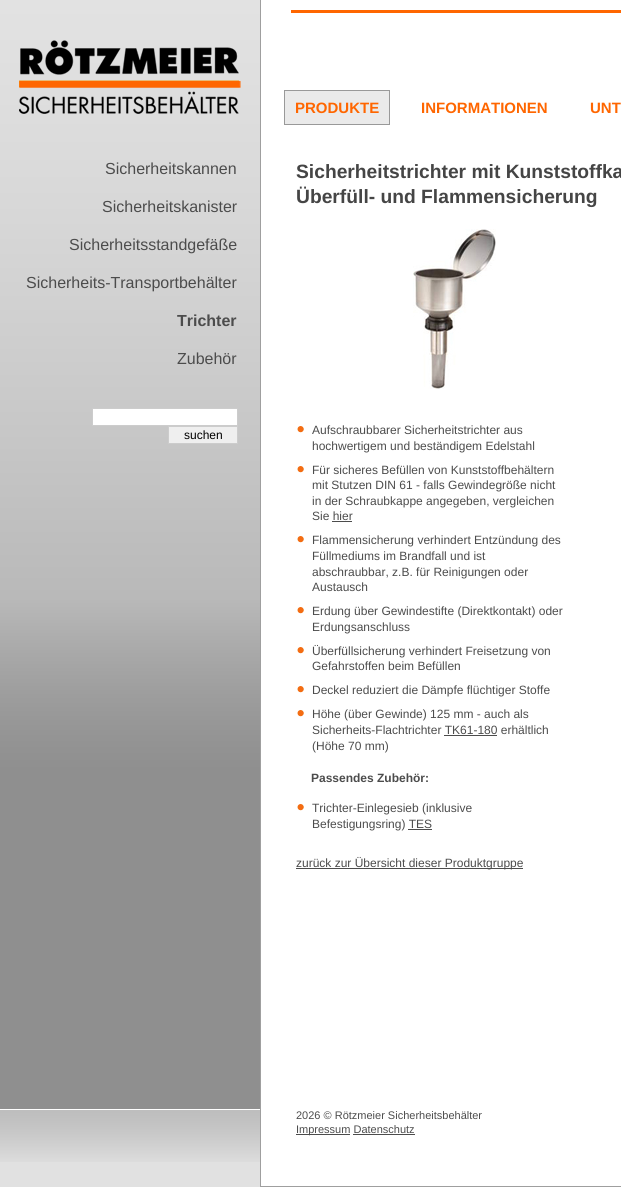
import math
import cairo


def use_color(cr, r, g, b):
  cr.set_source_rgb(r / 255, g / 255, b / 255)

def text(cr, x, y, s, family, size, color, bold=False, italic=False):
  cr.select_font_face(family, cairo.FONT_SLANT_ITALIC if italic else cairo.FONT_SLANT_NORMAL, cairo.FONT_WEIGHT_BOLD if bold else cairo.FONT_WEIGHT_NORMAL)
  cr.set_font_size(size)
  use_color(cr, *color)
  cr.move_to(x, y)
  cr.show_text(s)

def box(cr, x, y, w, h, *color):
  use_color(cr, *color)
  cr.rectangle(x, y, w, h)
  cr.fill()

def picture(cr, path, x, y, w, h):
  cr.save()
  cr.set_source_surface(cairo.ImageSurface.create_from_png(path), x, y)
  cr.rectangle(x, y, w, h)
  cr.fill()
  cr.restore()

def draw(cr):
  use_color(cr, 143, 143, 143)
  cr.paint()
  picture(cr, "img_01.png", 0, 0, 261, 1109)
  picture(cr, "img_02.png", 19, 40, 222, 74)
  use_color(cr, 255, 255, 255)
  cr.rectangle(92.5, 408.5, 145, 17)
  cr.fill_preserve()
  use_color(cr, 204, 204, 204)
  cr.set_line_width(1)
  cr.stroke()
  use_color(cr, 239, 239, 239)
  cr.rectangle(168.5, 426.5, 69, 17)
  cr.fill_preserve()
  use_color(cr, 204, 204, 204)
  cr.stroke()
  box(cr, 261, 0, 360, 1186, 255, 255, 255)
  box(cr, 291, 10, 330, 3, 255, 102, 0)
  use_color(cr, 234, 234, 234)
  cr.rectangle(284.5, 90.5, 105, 34)
  cr.fill_preserve()
  use_color(cr, 153, 153, 153)
  cr.stroke()
  picture(cr, "img_03.png", 413, 229, 83, 160)
  picture(cr, "img_04.png", 297, 426, 7, 7)
  picture(cr, "img_04.png", 297, 466, 7, 7)
  box(cr, 332, 521, 20, 1, 76, 76, 76)
  picture(cr, "img_04.png", 297, 536, 7, 7)
  picture(cr, "img_04.png", 297, 607, 7, 7)
  picture(cr, "img_04.png", 297, 647, 7, 7)
  picture(cr, "img_04.png", 297, 686, 7, 7)
  picture(cr, "img_04.png", 297, 710, 7, 7)
  box(cr, 444, 735, 53, 1, 76, 76, 76)
  picture(cr, "img_04.png", 297, 804, 7, 7)
  box(cr, 408, 829, 24, 1, 76, 76, 76)
  box(cr, 296, 868, 227, 1, 76, 76, 76)
  box(cr, 0, 1162, 260, 25, 225, 225, 225)
  picture(cr, "img_05.png", 0, 1110, 260, 52)
  box(cr, 0, 1109, 261, 1, 255, 255, 255)
  box(cr, 260, 1186, 361, 1, 159, 159, 159)
  box(cr, 260, 1109, 1, 78, 159, 159, 159)
  box(cr, 296, 1134, 54, 1, 76, 76, 76)
  box(cr, 353, 1134, 62, 1, 76, 76, 76)
  text(cr, 105, 174, "Sicherheitskannen", "Liberation Sans", 16, (76, 76, 76))
  text(cr, 102, 212, "Sicherheitskanister", "Liberation Sans", 16, (76, 76, 76))
  text(cr, 69, 250, "Sicherheitsstandgefäße", "Liberation Sans", 16, (76, 76, 76))
  text(cr, 26, 288, "Sicherheits-Transportbehälter", "Liberation Sans", 16, (76, 76, 76))
  text(cr, 177, 326, "Trichter", "Liberation Sans", 16, (76, 76, 76), bold=True)
  text(cr, 177, 364, "Zubehör", "Liberation Sans", 16, (76, 76, 76))
  text(cr, 184, 439, "suchen", "Liberation Sans", 12, (0, 0, 0))
  text(cr, 295, 113, "PRODUKTE", "Liberation Sans", 15, (255, 102, 0), bold=True)
  text(cr, 421, 113, "INFORMATIONEN", "Liberation Sans", 15, (255, 102, 0), bold=True)
  text(cr, 590, 113, "UNT", "Liberation Sans", 15, (255, 102, 0), bold=True)
  text(cr, 296, 178, "Sicherheitstrichter mit Kunststoffka", "Liberation Sans", 19.25, (69, 69, 69), bold=True)
  text(cr, 296, 203, "Überfüll- und Flammensicherung", "Liberation Sans", 19.25, (69, 69, 69), bold=True)
  text(cr, 312, 434, "Aufschraubbarer Sicherheitstrichter aus", "Liberation Sans", 12, (76, 76, 76))
  text(cr, 312, 450, "hochwertigem und beständigem Edelstahl", "Liberation Sans", 12, (76, 76, 76))
  text(cr, 312, 474, "Für sicheres Befüllen von Kunststoffbehältern", "Liberation Sans", 12, (76, 76, 76))
  text(cr, 312, 489, "mit Stutzen DIN 61 - falls Gewindegröße nicht", "Liberation Sans", 12, (76, 76, 76))
  text(cr, 312, 505, "in der Schraubkappe angegeben, vergleichen", "Liberation Sans", 12, (76, 76, 76))
  text(cr, 312, 520, "Sie hier", "Liberation Sans", 12, (76, 76, 76))
  text(cr, 312, 544, "Flammensicherung verhindert Entzündung des", "Liberation Sans", 12, (76, 76, 76))
  text(cr, 312, 560, "Füllmediums im Brandfall und ist", "Liberation Sans", 12, (76, 76, 76))
  text(cr, 312, 576, "abschraubbar, z.B. für Reinigungen oder", "Liberation Sans", 12, (76, 76, 76))
  text(cr, 312, 591, "Austausch", "Liberation Sans", 12, (76, 76, 76))
  text(cr, 312, 615, "Erdung über Gewindestifte (Direktkontakt) oder", "Liberation Sans", 12, (76, 76, 76))
  text(cr, 312, 631, "Erdungsanschluss", "Liberation Sans", 12, (76, 76, 76))
  text(cr, 312, 655, "Überfüllsicherung verhindert Freisetzung von", "Liberation Sans", 12, (76, 76, 76))
  text(cr, 312, 670, "Gefahrstoffen beim Befüllen", "Liberation Sans", 12, (76, 76, 76))
  text(cr, 312, 694, "Deckel reduziert die Dämpfe flüchtiger Stoffe", "Liberation Sans", 12, (76, 76, 76))
  text(cr, 312, 718, "Höhe (über Gewinde) 125 mm - auch als", "Liberation Sans", 12, (76, 76, 76))
  text(cr, 312, 734, "Sicherheits-Flachtrichter TK61-180 erhältlich", "Liberation Sans", 12, (76, 76, 76))
  text(cr, 312, 750, "(Höhe 70 mm)", "Liberation Sans", 12, (76, 76, 76))
  text(cr, 311, 782, "Passendes Zubehör:", "Liberation Sans", 12, (76, 76, 76), bold=True)
  text(cr, 312, 812, "Trichter-Einlegesieb (inklusive", "Liberation Sans", 12, (76, 76, 76))
  text(cr, 312, 828, "Befestigungsring) TES", "Liberation Sans", 12, (76, 76, 76))
  text(cr, 296, 867, "zurück zur Übersicht dieser Produktgruppe", "Liberation Sans", 12, (76, 76, 76))
  text(cr, 296, 1119, "2026 © Rötzmeier Sicherheitsbehälter", "Liberation Sans", 11, (76, 76, 76))
  text(cr, 296, 1133, "Impressum Datenschutz", "Liberation Sans", 11, (76, 76, 76))


surface = cairo.ImageSurface(cairo.FORMAT_RGB24, 621, 1187)
cr = cairo.Context(surface)
options = cairo.FontOptions()
options.set_hint_metrics(cairo.HINT_METRICS_OFF)
options.set_hint_style(cairo.HINT_STYLE_NONE)
cr.set_font_options(options)
cr.set_miter_limit(4)
draw(cr)
surface.write_to_png("out.png")
